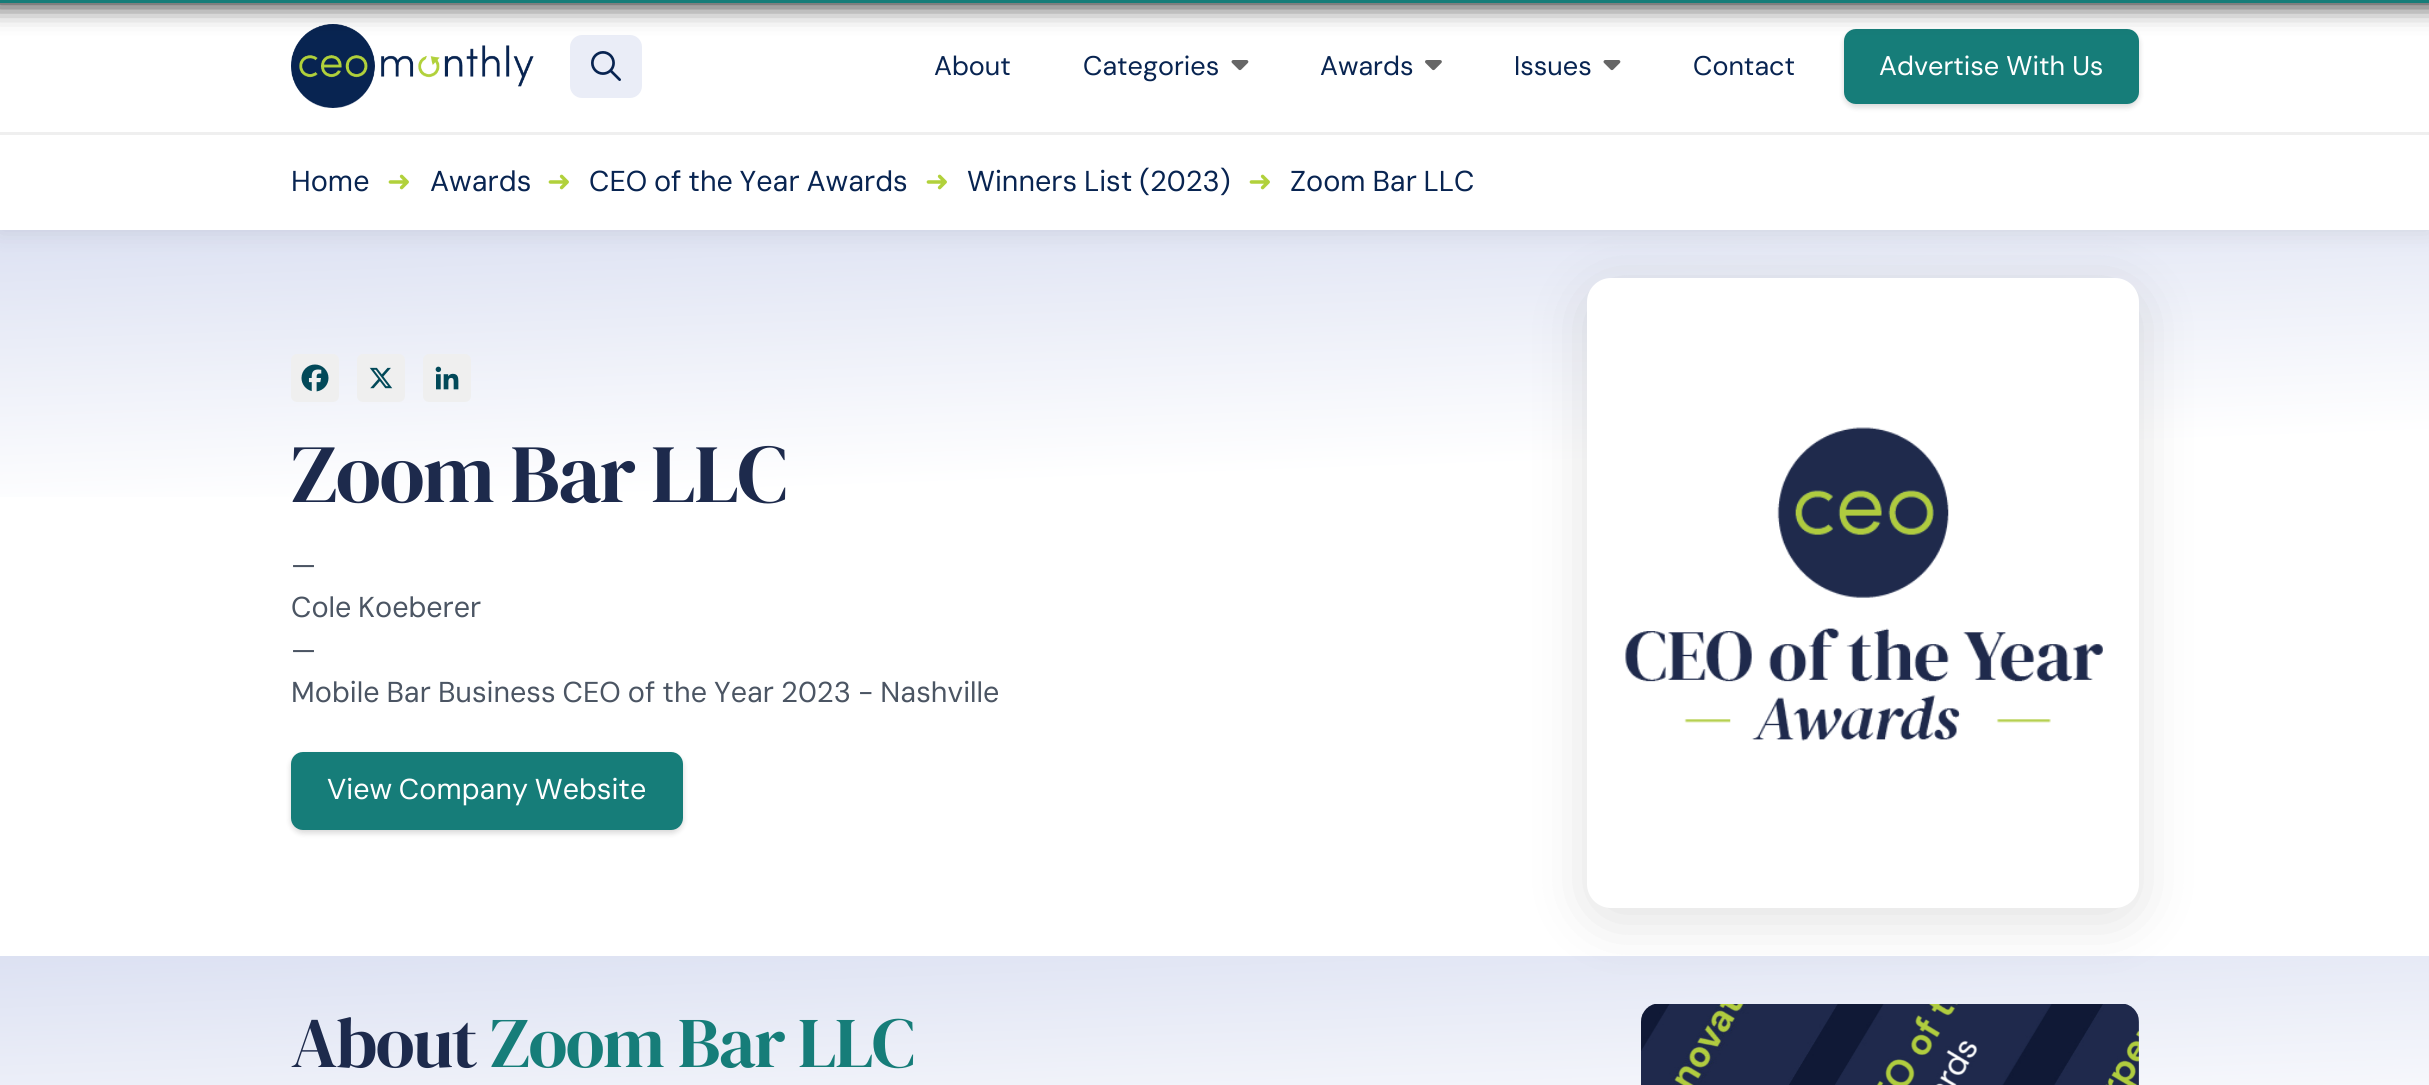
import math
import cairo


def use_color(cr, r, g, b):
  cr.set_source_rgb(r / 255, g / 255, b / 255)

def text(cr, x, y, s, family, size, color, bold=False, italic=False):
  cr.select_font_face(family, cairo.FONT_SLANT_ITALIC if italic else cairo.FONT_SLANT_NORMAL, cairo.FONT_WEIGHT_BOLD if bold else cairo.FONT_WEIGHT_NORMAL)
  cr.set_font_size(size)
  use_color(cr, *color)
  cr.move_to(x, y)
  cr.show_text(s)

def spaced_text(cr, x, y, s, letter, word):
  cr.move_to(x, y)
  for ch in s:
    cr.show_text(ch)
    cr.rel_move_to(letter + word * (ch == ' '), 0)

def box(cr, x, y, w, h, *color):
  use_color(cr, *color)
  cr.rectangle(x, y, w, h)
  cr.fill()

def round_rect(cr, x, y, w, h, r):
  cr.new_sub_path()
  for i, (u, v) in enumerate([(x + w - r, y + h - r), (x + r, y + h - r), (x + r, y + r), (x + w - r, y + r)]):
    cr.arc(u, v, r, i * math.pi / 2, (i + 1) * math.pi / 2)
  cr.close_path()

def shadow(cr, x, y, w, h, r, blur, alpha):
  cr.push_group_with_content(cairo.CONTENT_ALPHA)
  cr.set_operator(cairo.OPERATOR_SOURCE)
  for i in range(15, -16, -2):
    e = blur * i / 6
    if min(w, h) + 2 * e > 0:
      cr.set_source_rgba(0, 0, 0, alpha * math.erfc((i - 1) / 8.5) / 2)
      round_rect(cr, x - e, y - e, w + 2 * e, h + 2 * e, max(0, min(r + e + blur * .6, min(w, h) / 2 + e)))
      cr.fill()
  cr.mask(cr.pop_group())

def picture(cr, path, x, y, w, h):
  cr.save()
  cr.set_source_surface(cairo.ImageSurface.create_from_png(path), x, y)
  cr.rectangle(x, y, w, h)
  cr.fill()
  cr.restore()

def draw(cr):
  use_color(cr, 255, 255, 255)
  cr.paint()
  gradient = cairo.LinearGradient(1197, 71, 1229, 991)
  gradient.add_color_stop_rgba(0, 0.808, 0.835, 0.929, 1)
  gradient.add_color_stop_rgba(0.44, 1, 1, 1, 1)
  cr.set_source(gradient)
  cr.rectangle(0, 230, 2429, 267)
  cr.fill()
  use_color(cr, 0, 0, 0)
  shadow(cr, 0, 0, 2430, 230, 0, 12, 0.1)
  box(cr, 0, 3, 2429, 227, 255, 255, 255)
  picture(cr, "img_01.png", 291, 24, 243, 84)
  use_color(cr, 234, 237, 247)
  round_rect(cr, 570, 35, 72, 63, 12)
  cr.fill()
  use_color(cr, 0, 0, 0)
  shadow(cr, 1844, 32, 295, 75, 12, 3, 0.16)
  use_color(cr, 22, 125, 121)
  round_rect(cr, 1844, 29, 295, 75, 12)
  cr.fill()
  use_color(cr, 0, 0, 0)
  shadow(cr, 0, 0, 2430, 3, 0, 13, 1)
  box(cr, 0, 0, 2429, 3, 22, 125, 121)
  box(cr, 0, 132, 2429, 3, 239, 239, 239)
  picture(cr, "img_02.png", 591, 51, 30, 30)
  picture(cr, "img_03.png", 1231, 60, 18, 11)
  picture(cr, "img_04.png", 1425, 60, 17, 11)
  picture(cr, "img_03.png", 1603, 60, 18, 11)
  round_rect(cr, 291, 354, 48, 48, 6)
  cr.fill()
  picture(cr, "img_05.png", 301, 364, 28, 28)
  round_rect(cr, 357, 354, 48, 48, 6)
  cr.fill()
  picture(cr, "img_06.png", 369, 367, 24, 22)
  round_rect(cr, 423, 354, 48, 48, 6)
  cr.fill()
  picture(cr, "img_07.png", 435, 366, 24, 24)
  use_color(cr, 0, 0, 0)
  shadow(cr, 291, 755, 392, 78, 12, 3, 0.16)
  use_color(cr, 22, 125, 121)
  round_rect(cr, 291, 752, 392, 78, 12)
  cr.fill()
  gradient = cairo.LinearGradient(1197, 797, 1229, 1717)
  gradient.add_color_stop_rgba(0, 0.808, 0.835, 0.929, 1)
  gradient.add_color_stop_rgba(0.44, 1, 1, 1, 1)
  cr.set_source(gradient)
  cr.rectangle(0, 956, 2429, 129)
  cr.fill()
  use_color(cr, 0, 0, 0)
  shadow(cr, 1587, 290, 552, 630, 24, 30, 0.12)
  use_color(cr, 255, 255, 255)
  round_rect(cr, 1587, 278, 552, 630, 24)
  cr.fill()
  picture(cr, "img_08.png", 1625, 427, 478, 314)
  picture(cr, "img_09.png", 1641, 1004, 498, 81)
  text(cr, 934, 75, "About", "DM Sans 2", 27, (8, 36, 81))
  text(cr, 1083, 75, "Categories", "DM Sans 2", 27, (8, 36, 81))
  text(cr, 1320, 75, "Awards", "DM Sans 2", 27, (8, 36, 81))
  text(cr, 1514, 75, "Issues", "DM Sans 2", 27, (8, 36, 81))
  text(cr, 1693, 75, "Contact", "DM Sans 2", 27, (8, 36, 81))
  text(cr, 1879, 75, "Advertise With Us", "DM Sans 2", 27, (255, 255, 255))
  text(cr, 291, 191, "Home", "DM Sans", 28.75, (8, 36, 81))
  text(cr, 387, 191, "➜", "DejaVu Sans", 28.75, (177, 209, 59))
  text(cr, 430, 191, "Awards", "DM Sans", 28.75, (8, 36, 81))
  text(cr, 547, 191, "➜", "DejaVu Sans", 28.75, (177, 209, 59))
  cr.select_font_face("DM Sans")
  use_color(cr, 8, 36, 81)
  spaced_text(cr, 589, 191, "CEO of the Year Awards", 0, -1)
  text(cr, 925, 191, "➜", "DejaVu Sans", 28.75, (177, 209, 59))
  cr.select_font_face("DM Sans")
  use_color(cr, 8, 36, 81)
  spaced_text(cr, 967, 191, "Winners List (2023)", 0, -1)
  text(cr, 1248, 191, "➜", "DejaVu Sans", 28.75, (177, 209, 59))
  cr.select_font_face("DM Sans")
  use_color(cr, 8, 36, 81)
  spaced_text(cr, 1290, 191, "Zoom Bar LLC", 0, -1)
  cr.select_font_face("DM Serif Display")
  cr.set_font_size(82.75)
  use_color(cr, 29, 42, 76)
  spaced_text(cr, 291, 502, "Zoom Bar LLC", -1.5, 0)
  text(cr, 291, 575, "—", "DM Sans", 28.75, (75, 85, 99))
  spaced_text(cr, 291, 617, "Cole Koeberer", 0, -1)
  text(cr, 291, 660, "—", "DM Sans", 28.75, (75, 85, 99))
  spaced_text(cr, 291, 702, "Mobile Bar Business CEO of the Year 2023 - Nashville", 0, -0.75)
  use_color(cr, 255, 255, 255)
  spaced_text(cr, 327, 799, "View Company Website", 0, -1)
  cr.select_font_face("DM Serif Display")
  cr.set_font_size(71.25)
  use_color(cr, 29, 42, 76)
  spaced_text(cr, 291, 1067, "About", -1.5, 0)
  use_color(cr, 22, 125, 121)
  spaced_text(cr, 490, 1067, "Zoom Bar LLC", -1.5, 0)


surface = cairo.ImageSurface(cairo.FORMAT_RGB24, 2429, 1085)
cr = cairo.Context(surface)
options = cairo.FontOptions()
options.set_hint_metrics(cairo.HINT_METRICS_OFF)
options.set_hint_style(cairo.HINT_STYLE_NONE)
cr.set_font_options(options)
cr.set_miter_limit(4)
draw(cr)
surface.write_to_png("out.png")
